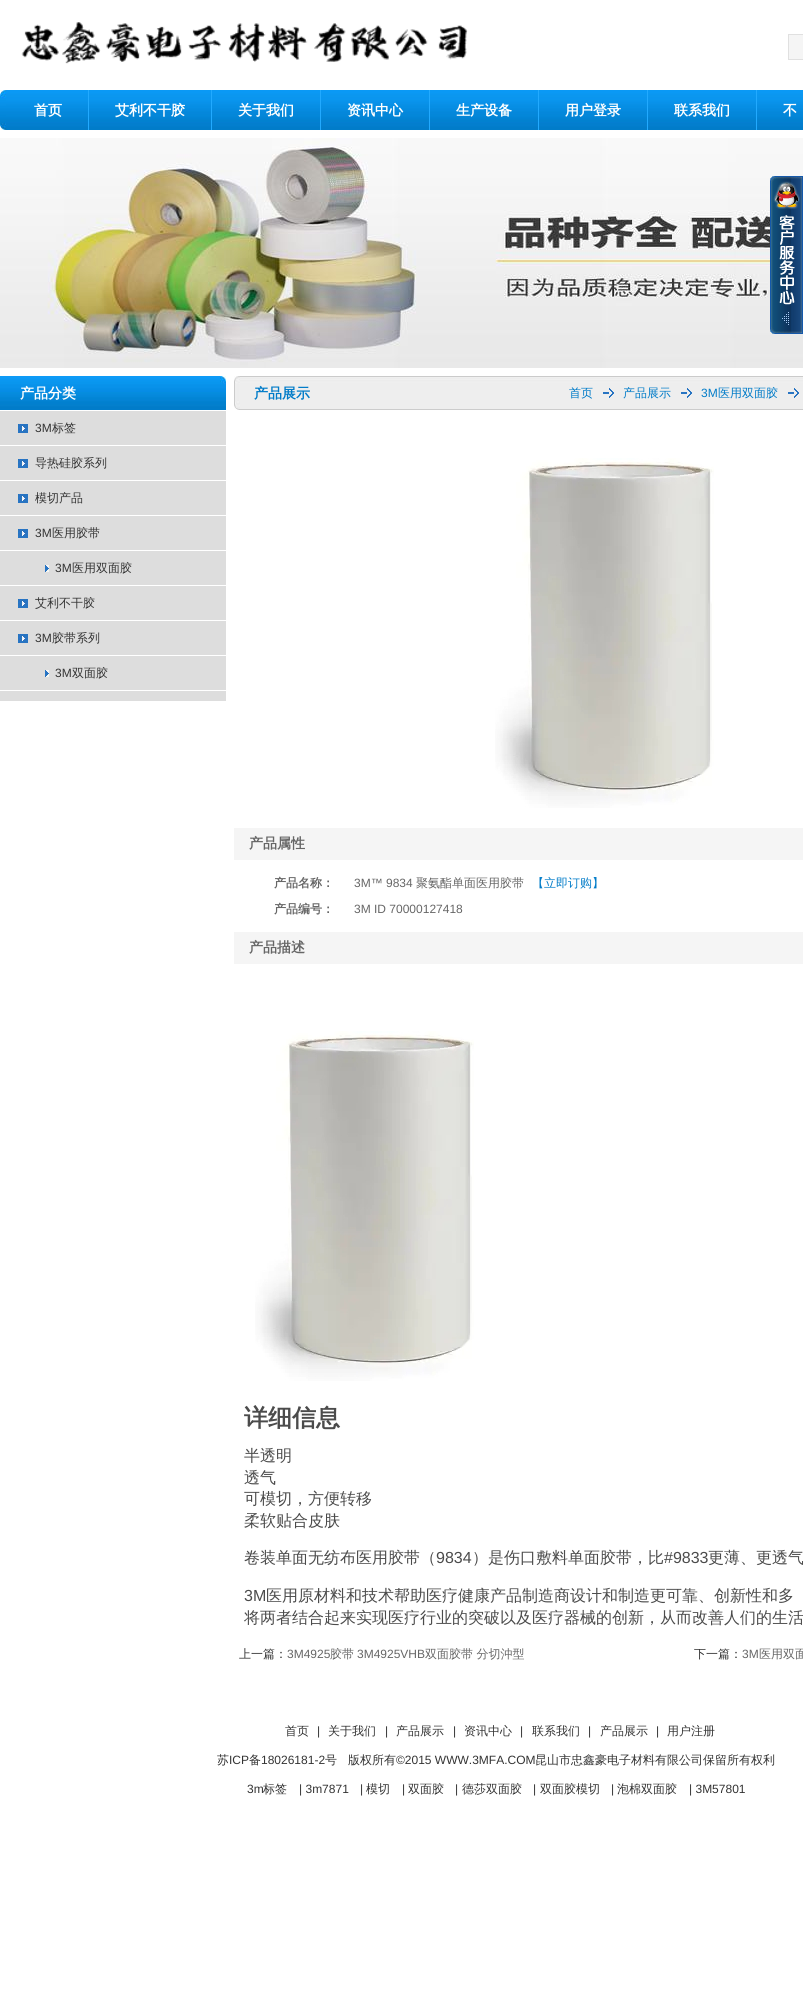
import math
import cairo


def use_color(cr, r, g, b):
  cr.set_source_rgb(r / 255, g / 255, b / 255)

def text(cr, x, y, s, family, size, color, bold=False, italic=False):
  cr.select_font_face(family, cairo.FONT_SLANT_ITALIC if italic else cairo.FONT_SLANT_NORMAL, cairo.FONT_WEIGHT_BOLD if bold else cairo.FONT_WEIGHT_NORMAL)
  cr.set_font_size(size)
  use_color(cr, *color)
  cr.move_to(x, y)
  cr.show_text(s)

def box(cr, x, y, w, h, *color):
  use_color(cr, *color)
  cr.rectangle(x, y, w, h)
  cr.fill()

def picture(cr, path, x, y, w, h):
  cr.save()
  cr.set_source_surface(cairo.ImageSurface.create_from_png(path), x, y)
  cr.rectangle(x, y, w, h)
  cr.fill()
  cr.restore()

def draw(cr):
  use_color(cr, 255, 255, 255)
  cr.paint()
  picture(cr, "img_01.png", 21, 22, 447, 42)
  box(cr, 788, 34, 15, 26, 224, 224, 224)
  box(cr, 789, 35, 14, 24, 245, 245, 245)
  picture(cr, "img_02.png", 6, 90, 797, 40)
  picture(cr, "img_03.png", 0, 90, 6, 40)
  box(cr, 88, 90, 1, 40, 34, 170, 255)
  box(cr, 211, 90, 1, 40, 34, 170, 255)
  box(cr, 320, 90, 1, 40, 34, 170, 255)
  box(cr, 429, 90, 1, 40, 34, 170, 255)
  box(cr, 538, 90, 1, 40, 34, 170, 255)
  box(cr, 647, 90, 1, 40, 34, 170, 255)
  box(cr, 756, 90, 1, 40, 34, 170, 255)
  picture(cr, "img_04.png", 0, 138, 803, 230)
  picture(cr, "img_05.png", 770, 176, 33, 158)
  picture(cr, "img_06.png", 0, 376, 226, 34)
  picture(cr, "img_07.png", 220, 376, 6, 8)
  box(cr, 0, 411, 226, 290, 221, 221, 221)
  box(cr, 0, 445, 226, 1, 255, 255, 255)
  picture(cr, "img_08.png", 18, 424, 10, 9)
  box(cr, 0, 480, 226, 1, 255, 255, 255)
  picture(cr, "img_08.png", 18, 459, 10, 9)
  box(cr, 0, 515, 226, 1, 255, 255, 255)
  picture(cr, "img_08.png", 18, 494, 10, 9)
  box(cr, 0, 550, 226, 1, 255, 255, 255)
  picture(cr, "img_08.png", 18, 529, 10, 9)
  box(cr, 0, 585, 226, 1, 255, 255, 255)
  picture(cr, "img_09.png", 45, 565, 4, 7)
  box(cr, 0, 620, 226, 1, 255, 255, 255)
  picture(cr, "img_08.png", 18, 599, 10, 9)
  box(cr, 0, 655, 226, 1, 255, 255, 255)
  picture(cr, "img_08.png", 18, 634, 10, 9)
  box(cr, 0, 690, 226, 1, 255, 255, 255)
  picture(cr, "img_09.png", 45, 670, 4, 7)
  picture(cr, "img_10.png", 240, 376, 563, 34)
  picture(cr, "img_11.png", 234, 376, 6, 34)
  picture(cr, "img_12.png", 603, 388, 11, 10)
  picture(cr, "img_12.png", 681, 388, 11, 10)
  picture(cr, "img_12.png", 788, 388, 11, 10)
  picture(cr, "img_13.png", 495, 458, 219, 350)
  box(cr, 234, 828, 569, 32, 245, 245, 245)
  box(cr, 234, 932, 569, 32, 245, 245, 245)
  picture(cr, "img_13.png", 255, 1031, 219, 350)
  text(cr, 34, 115, "首页", "WenQuanYi Zen Hei", 14, (255, 255, 255), bold=True)
  text(cr, 115, 115, "艾利不干胶", "WenQuanYi Zen Hei", 14, (255, 255, 255), bold=True)
  text(cr, 238, 115, "关于我们", "WenQuanYi Zen Hei", 14, (255, 255, 255), bold=True)
  text(cr, 347, 115, "资讯中心", "WenQuanYi Zen Hei", 14, (255, 255, 255), bold=True)
  text(cr, 456, 115, "生产设备", "WenQuanYi Zen Hei", 14, (255, 255, 255), bold=True)
  text(cr, 565, 115, "用户登录", "WenQuanYi Zen Hei", 14, (255, 255, 255), bold=True)
  text(cr, 674, 115, "联系我们", "WenQuanYi Zen Hei", 14, (255, 255, 255), bold=True)
  text(cr, 783, 115, "不", "WenQuanYi Zen Hei", 14, (255, 255, 255), bold=True)
  text(cr, 20, 398, "产品分类", "WenQuanYi Zen Hei", 14, (255, 255, 255), bold=True)
  text(cr, 35, 432, "3M", "Liberation Sans", 12, (51, 51, 51))
  text(cr, 52, 432, "标签", "WenQuanYi Zen Hei Medium", 12, (51, 51, 51))
  text(cr, 35, 467, "导热硅胶系列", "WenQuanYi Zen Hei Medium", 12, (51, 51, 51))
  text(cr, 35, 502, "模切产品", "WenQuanYi Zen Hei Medium", 12, (51, 51, 51))
  text(cr, 35, 537, "3M", "Liberation Sans", 12, (51, 51, 51))
  text(cr, 52, 537, "医用胶带", "WenQuanYi Zen Hei Medium", 12, (51, 51, 51))
  text(cr, 55, 572, "3M", "Liberation Sans", 12, (51, 51, 51))
  text(cr, 72, 572, "医用双面胶", "WenQuanYi Zen Hei Medium", 12, (51, 51, 51))
  text(cr, 35, 607, "艾利不干胶", "WenQuanYi Zen Hei Medium", 12, (51, 51, 51))
  text(cr, 35, 642, "3M", "Liberation Sans", 12, (51, 51, 51))
  text(cr, 52, 642, "胶带系列", "WenQuanYi Zen Hei Medium", 12, (51, 51, 51))
  text(cr, 55, 677, "3M", "Liberation Sans", 12, (51, 51, 51))
  text(cr, 72, 677, "双面胶", "WenQuanYi Zen Hei Medium", 12, (51, 51, 51))
  text(cr, 254, 398, "产品展示", "WenQuanYi Zen Hei", 14, (0, 123, 200), bold=True)
  text(cr, 569, 397, "首页", "WenQuanYi Zen Hei Medium", 12, (0, 123, 200))
  text(cr, 623, 397, "产品展示", "WenQuanYi Zen Hei Medium", 12, (0, 123, 200))
  text(cr, 701, 397, "3M", "Liberation Sans", 12, (0, 123, 200))
  text(cr, 718, 397, "医用双面胶", "WenQuanYi Zen Hei Medium", 12, (0, 123, 200))
  text(cr, 249, 848, "产品属性", "WenQuanYi Zen Hei", 14, (102, 102, 102), bold=True)
  text(cr, 274, 887, "产品名称：", "WenQuanYi Zen Hei", 12, (102, 102, 102), bold=True)
  text(cr, 354, 887, "3M™ 9834", "Liberation Sans", 12, (102, 102, 102))
  text(cr, 416, 887, "聚氨酯单面医用胶带", "WenQuanYi Zen Hei Medium", 12, (102, 102, 102))
  text(cr, 532, 887, "【立即订购】", "WenQuanYi Zen Hei Medium", 12, (0, 123, 200))
  text(cr, 274, 913, "产品编号：", "WenQuanYi Zen Hei", 12, (102, 102, 102), bold=True)
  text(cr, 354, 913, "3M ID 70000127418", "Liberation Sans", 12, (102, 102, 102))
  text(cr, 249, 952, "产品描述", "WenQuanYi Zen Hei", 14, (102, 102, 102), bold=True)
  text(cr, 244, 1426, "详细信息", "WenQuanYi Zen Hei", 24, (75, 75, 75), bold=True)
  text(cr, 244, 1461, "半透明", "WenQuanYi Zen Hei Medium", 16, (75, 75, 75))
  text(cr, 244, 1483, "透气", "WenQuanYi Zen Hei Medium", 16, (75, 75, 75))
  text(cr, 244, 1504, "可模切，方便转移", "WenQuanYi Zen Hei Medium", 16, (75, 75, 75))
  text(cr, 244, 1526, "柔软贴合皮肤", "WenQuanYi Zen Hei Medium", 16, (75, 75, 75))
  text(cr, 244, 1563, "卷装单面无纺布医用胶带（", "WenQuanYi Zen Hei Medium", 16, (75, 75, 75))
  text(cr, 436, 1563, "9834", "Liberation Sans", 16, (75, 75, 75))
  text(cr, 472, 1563, "）是伤口敷料单面胶带，比", "WenQuanYi Zen Hei Medium", 16, (75, 75, 75))
  text(cr, 664, 1563, "#9833", "Liberation Sans", 16, (75, 75, 75))
  text(cr, 708, 1563, "更薄、更透气", "WenQuanYi Zen Hei Medium", 16, (75, 75, 75))
  text(cr, 244, 1601, "3M", "Liberation Sans", 16, (75, 75, 75))
  text(cr, 266, 1601, "医用原材料和技术帮助医疗健康产品制造商设计和制造更可靠、创新性和多", "WenQuanYi Zen Hei Medium", 16, (75, 75, 75))
  text(cr, 244, 1623, "将两者结合起来实现医疗行业的突破以及医疗器械的创新，从而改善人们的生活", "WenQuanYi Zen Hei Medium", 16, (75, 75, 75))
  text(cr, 239, 1658, "上一篇：", "WenQuanYi Zen Hei Medium", 12, (51, 51, 51))
  text(cr, 287, 1658, "3M4925", "Liberation Sans", 12, (102, 102, 102))
  text(cr, 330, 1658, "胶带", "WenQuanYi Zen Hei Medium", 12, (102, 102, 102))
  text(cr, 357, 1658, "3M4925VHB", "Liberation Sans", 12, (102, 102, 102))
  text(cr, 425, 1658, "双面胶带 分切沖型", "WenQuanYi Zen Hei Medium", 12, (102, 102, 102))
  text(cr, 694, 1658, "下一篇：", "WenQuanYi Zen Hei Medium", 12, (51, 51, 51))
  text(cr, 742, 1658, "3M", "Liberation Sans", 12, (102, 102, 102))
  text(cr, 759, 1658, "医用双面", "WenQuanYi Zen Hei Medium", 12, (102, 102, 102))
  text(cr, 285, 1735, "首页", "WenQuanYi Zen Hei Medium", 12, (51, 51, 51))
  text(cr, 317, 1735, "|", "Liberation Sans", 12, (51, 51, 51))
  text(cr, 328, 1735, "关于我们", "WenQuanYi Zen Hei Medium", 12, (51, 51, 51))
  text(cr, 385, 1735, "|", "Liberation Sans", 12, (51, 51, 51))
  text(cr, 396, 1735, "产品展示", "WenQuanYi Zen Hei Medium", 12, (51, 51, 51))
  text(cr, 453, 1735, "|", "Liberation Sans", 12, (51, 51, 51))
  text(cr, 464, 1735, "资讯中心", "WenQuanYi Zen Hei Medium", 12, (51, 51, 51))
  text(cr, 520, 1735, "|", "Liberation Sans", 12, (51, 51, 51))
  text(cr, 532, 1735, "联系我们", "WenQuanYi Zen Hei Medium", 12, (51, 51, 51))
  text(cr, 588, 1735, "|", "Liberation Sans", 12, (51, 51, 51))
  text(cr, 600, 1735, "产品展示", "WenQuanYi Zen Hei Medium", 12, (51, 51, 51))
  text(cr, 656, 1735, "|", "Liberation Sans", 12, (51, 51, 51))
  text(cr, 667, 1735, "用户注册", "WenQuanYi Zen Hei Medium", 12, (51, 51, 51))
  text(cr, 217, 1764, "苏", "WenQuanYi Zen Hei Medium", 12, (51, 51, 51))
  text(cr, 229, 1764, "ICP", "Liberation Sans", 12, (51, 51, 51))
  text(cr, 249, 1764, "备", "WenQuanYi Zen Hei Medium", 12, (51, 51, 51))
  text(cr, 261, 1764, "18026181-2", "Liberation Sans", 12, (51, 51, 51))
  text(cr, 325, 1764, "号", "WenQuanYi Zen Hei Medium", 12, (51, 51, 51))
  text(cr, 348, 1764, "版权所有", "WenQuanYi Zen Hei Medium", 12, (51, 51, 51))
  text(cr, 396, 1764, "©2015 WWW.3MFA.COM", "Liberation Sans", 12, (51, 51, 51))
  text(cr, 535, 1764, "昆山市忠鑫豪电子材料有限公司保留所有权利", "WenQuanYi Zen Hei Medium", 12, (51, 51, 51))
  text(cr, 247, 1793, "3m", "Liberation Sans", 12, (51, 51, 51))
  text(cr, 263, 1793, "标签", "WenQuanYi Zen Hei Medium", 12, (51, 51, 51))
  text(cr, 299, 1793, "| 3m7871", "Liberation Sans", 12, (51, 51, 51))
  text(cr, 360, 1793, "|", "Liberation Sans", 12, (51, 51, 51))
  text(cr, 366, 1793, "模切", "WenQuanYi Zen Hei Medium", 12, (51, 51, 51))
  text(cr, 402, 1793, "|", "Liberation Sans", 12, (51, 51, 51))
  text(cr, 408, 1793, "双面胶", "WenQuanYi Zen Hei Medium", 12, (51, 51, 51))
  text(cr, 455, 1793, "|", "Liberation Sans", 12, (51, 51, 51))
  text(cr, 462, 1793, "德莎双面胶", "WenQuanYi Zen Hei Medium", 12, (51, 51, 51))
  text(cr, 533, 1793, "|", "Liberation Sans", 12, (51, 51, 51))
  text(cr, 540, 1793, "双面胶模切", "WenQuanYi Zen Hei Medium", 12, (51, 51, 51))
  text(cr, 611, 1793, "|", "Liberation Sans", 12, (51, 51, 51))
  text(cr, 617, 1793, "泡棉双面胶", "WenQuanYi Zen Hei Medium", 12, (51, 51, 51))
  text(cr, 689, 1793, "| 3M57801", "Liberation Sans", 12, (51, 51, 51))


surface = cairo.ImageSurface(cairo.FORMAT_RGB24, 803, 2013)
cr = cairo.Context(surface)
options = cairo.FontOptions()
options.set_hint_metrics(cairo.HINT_METRICS_OFF)
options.set_hint_style(cairo.HINT_STYLE_NONE)
cr.set_font_options(options)
cr.set_miter_limit(4)
draw(cr)
surface.write_to_png("out.png")
